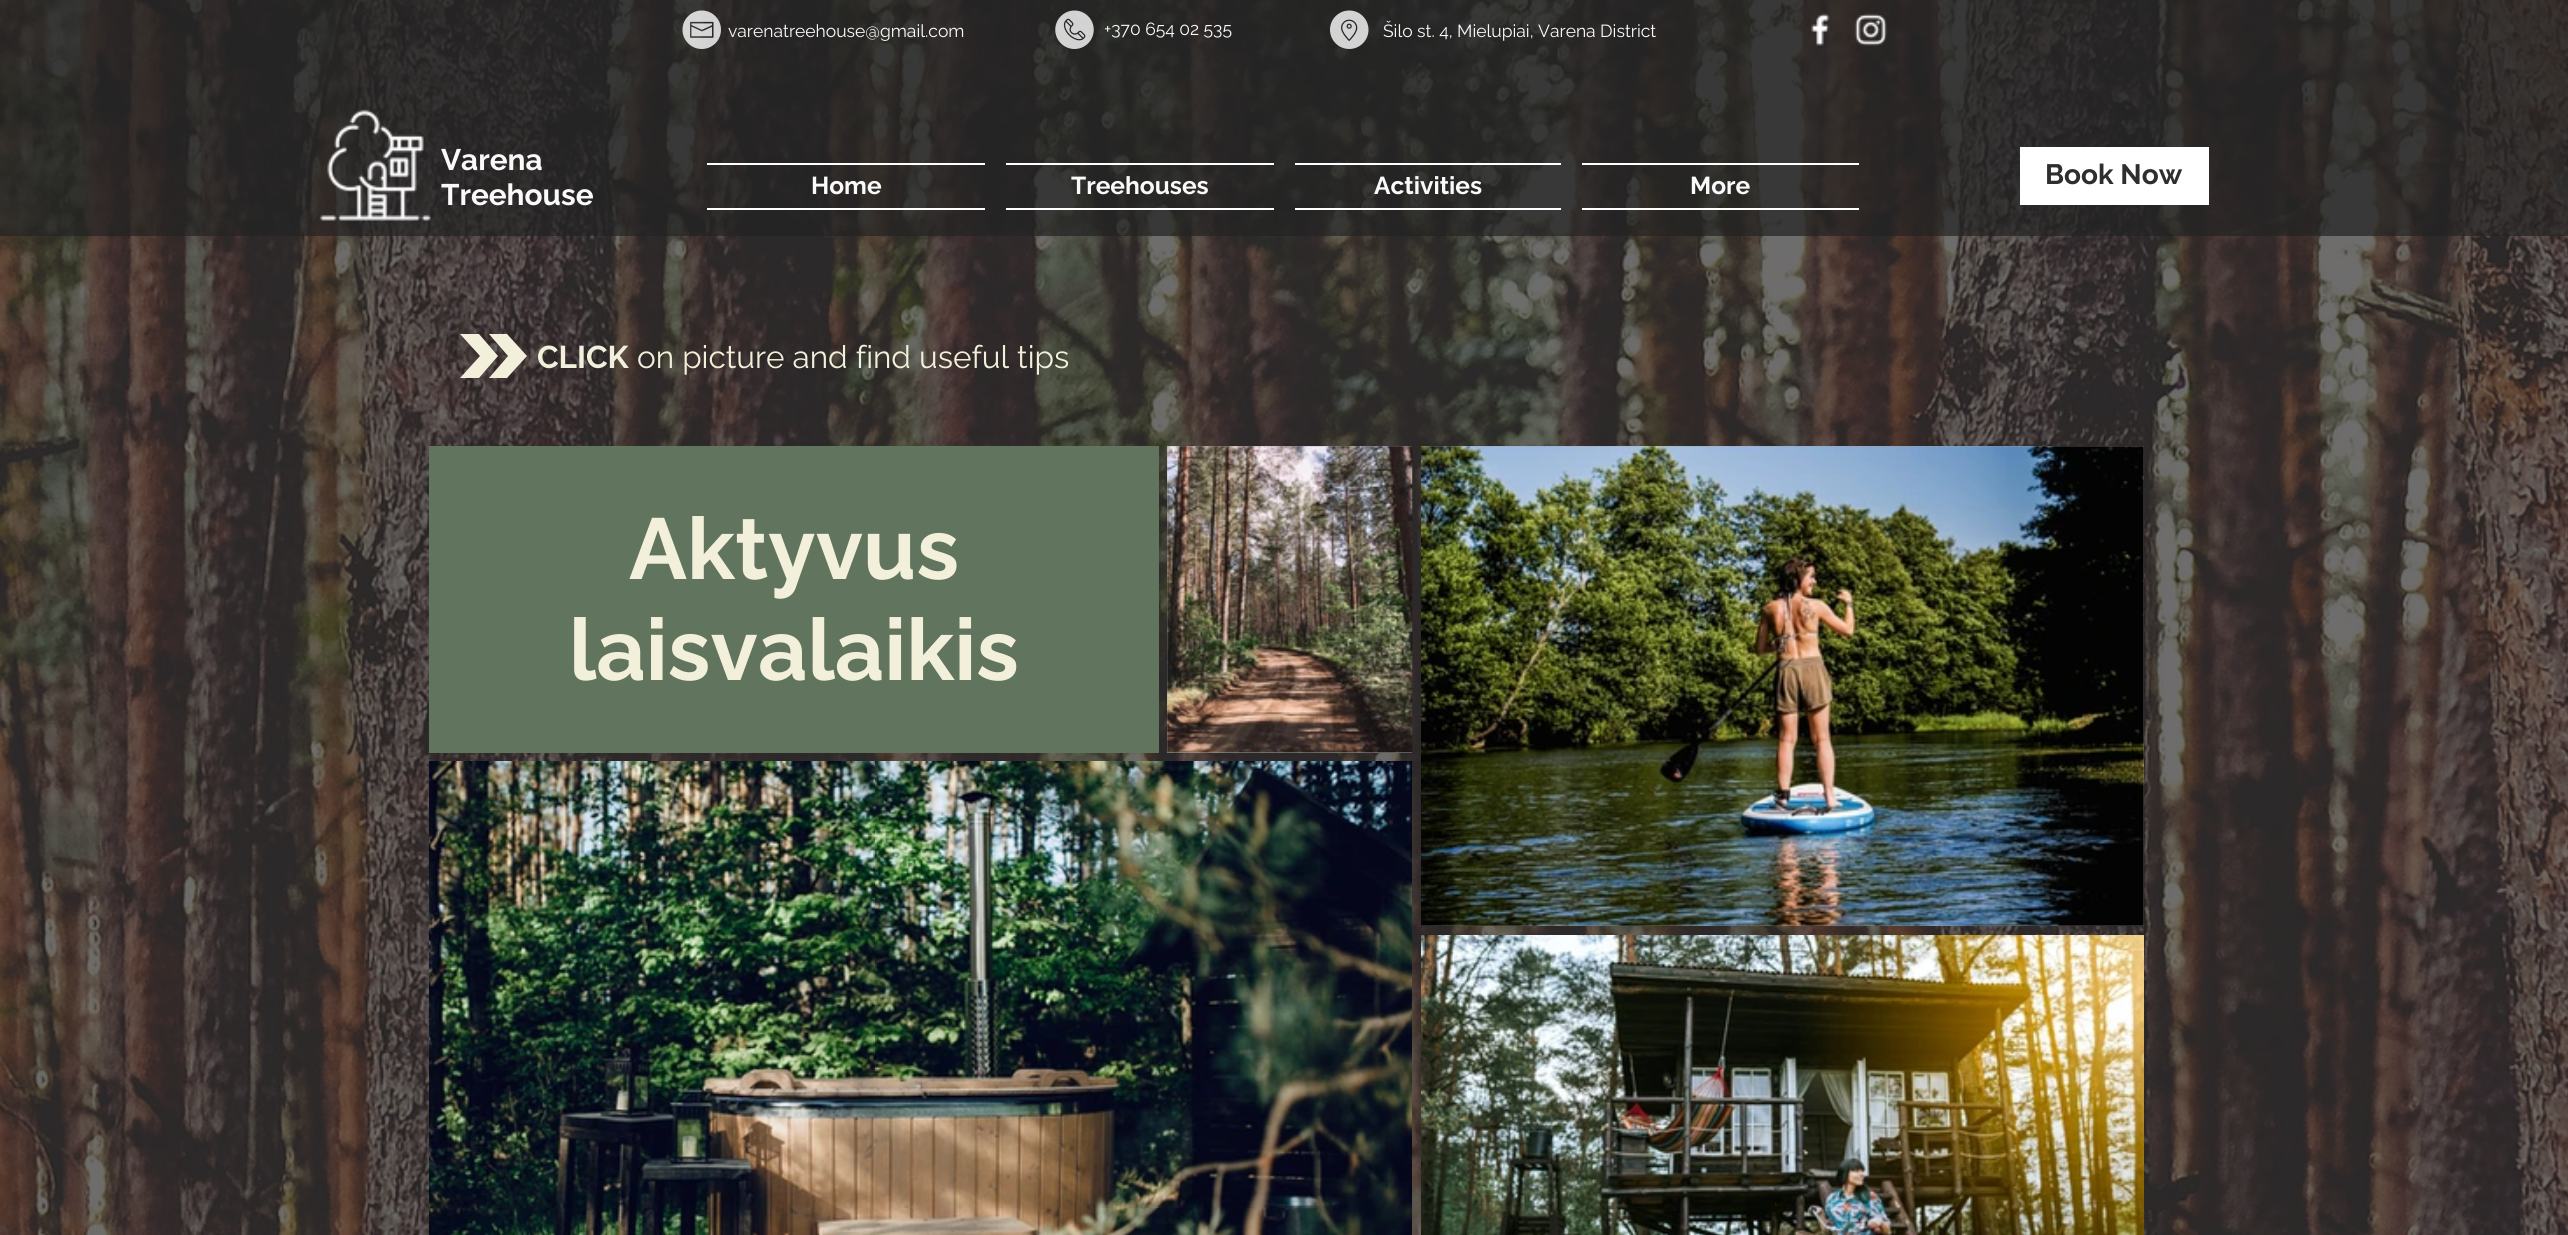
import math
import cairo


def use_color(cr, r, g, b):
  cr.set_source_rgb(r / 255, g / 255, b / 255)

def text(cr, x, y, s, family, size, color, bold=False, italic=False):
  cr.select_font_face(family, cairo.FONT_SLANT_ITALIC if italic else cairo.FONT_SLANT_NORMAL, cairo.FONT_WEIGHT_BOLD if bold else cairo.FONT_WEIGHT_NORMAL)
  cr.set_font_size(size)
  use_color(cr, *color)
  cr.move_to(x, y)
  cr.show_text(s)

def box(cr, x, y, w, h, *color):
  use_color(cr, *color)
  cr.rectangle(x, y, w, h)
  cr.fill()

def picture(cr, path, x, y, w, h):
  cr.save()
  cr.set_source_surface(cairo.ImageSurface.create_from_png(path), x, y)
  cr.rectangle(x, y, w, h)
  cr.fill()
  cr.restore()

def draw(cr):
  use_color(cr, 47, 46, 46)
  cr.paint()
  picture(cr, "img_01.png", 0, 0, 2568, 1235)
  cr.set_source_rgba(0.137, 0.137, 0.137, 0.7)
  cr.rectangle(0, 0, 2568, 236)
  cr.fill()
  picture(cr, "img_02.png", 682, 10, 39, 39)
  picture(cr, "img_03.png", 1055, 10, 39, 39)
  picture(cr, "img_04.png", 1330, 10, 39, 39)
  picture(cr, "img_05.png", 1811, 13, 19, 33)
  picture(cr, "img_06.png", 1854, 13, 33, 33)
  picture(cr, "img_07.png", 319, 109, 112, 112)
  box(cr, 707, 163, 278, 2, 255, 255, 255)
  box(cr, 707, 208, 278, 2, 255, 255, 255)
  box(cr, 1006, 163, 268, 2, 255, 255, 255)
  box(cr, 1006, 208, 268, 2, 255, 255, 255)
  box(cr, 1295, 163, 266, 2, 255, 255, 255)
  box(cr, 1295, 208, 266, 2, 255, 255, 255)
  box(cr, 1582, 163, 277, 2, 255, 255, 255)
  box(cr, 1582, 208, 277, 2, 255, 255, 255)
  box(cr, 2020, 147, 189, 58, 255, 255, 255)
  use_color(cr, 242, 239, 218)
  cr.new_path()
  cr.move_to(479, 334)
  cr.line_to(460, 334)
  cr.line_to(480, 356)
  cr.line_to(460, 378)
  cr.line_to(479, 378)
  cr.line_to(498, 356)
  cr.close_path()
  cr.fill()
  cr.new_path()
  cr.move_to(507, 334)
  cr.line_to(489, 334)
  cr.line_to(508, 356)
  cr.line_to(489, 378)
  cr.line_to(507, 378)
  cr.line_to(527, 356)
  cr.close_path()
  cr.fill()
  box(cr, 429, 446, 730, 307, 97, 116, 93)
  box(cr, 1167, 446, 245, 307, 160, 160, 159)
  picture(cr, "img_08.png", 1167, 446, 246, 307)
  box(cr, 1421, 446, 723, 480, 160, 160, 159)
  picture(cr, "img_09.png", 1421, 446, 723, 480)
  picture(cr, "img_10.png", 429, 761, 983, 474)
  picture(cr, "img_11.png", 1421, 935, 723, 300)
  text(cr, 728, 37, "varenatreehouse@gmail.com", "Raleway Thin", 17.5, (250, 250, 250))
  text(cr, 1104, 35, "+370 654 02 535", "Raleway Thin", 17.5, (250, 250, 250))
  text(cr, 1383, 37, "Šilo st. 4, Mielupiai, Varena District", "Raleway Thin", 17.5, (250, 250, 250))
  text(cr, 441, 170, "Varena", "Raleway", 29.75, (250, 250, 250), bold=True)
  text(cr, 441, 205, "Treehouse", "Raleway", 29.75, (250, 250, 250), bold=True)
  text(cr, 811, 194, "Home", "Raleway", 24.5, (250, 250, 250), bold=True)
  text(cr, 1071, 194, "Treehouses", "Raleway", 24.5, (250, 250, 250), bold=True)
  text(cr, 1374, 194, "Activities", "Raleway", 24.5, (250, 250, 250), bold=True)
  text(cr, 1690, 194, "More", "Raleway", 24.5, (250, 250, 250), bold=True)
  text(cr, 2045, 184, "Book Now", "Raleway", 28, (47, 46, 46), bold=True)
  text(cr, 537, 368, "CLICK", "Raleway", 31.5, (242, 239, 218), bold=True)
  text(cr, 637, 368, "on picture and find useful tips", "Raleway Thin", 31.5, (242, 239, 218))
  text(cr, 629, 579, "Aktyvus", "Raleway", 86.25, (242, 239, 218), bold=True)
  text(cr, 569, 680, "laisvalaikis", "Raleway", 86.25, (242, 239, 218), bold=True)


surface = cairo.ImageSurface(cairo.FORMAT_RGB24, 2568, 1235)
cr = cairo.Context(surface)
options = cairo.FontOptions()
options.set_hint_metrics(cairo.HINT_METRICS_OFF)
options.set_hint_style(cairo.HINT_STYLE_NONE)
cr.set_font_options(options)
cr.set_miter_limit(4)
draw(cr)
surface.write_to_png("out.png")
